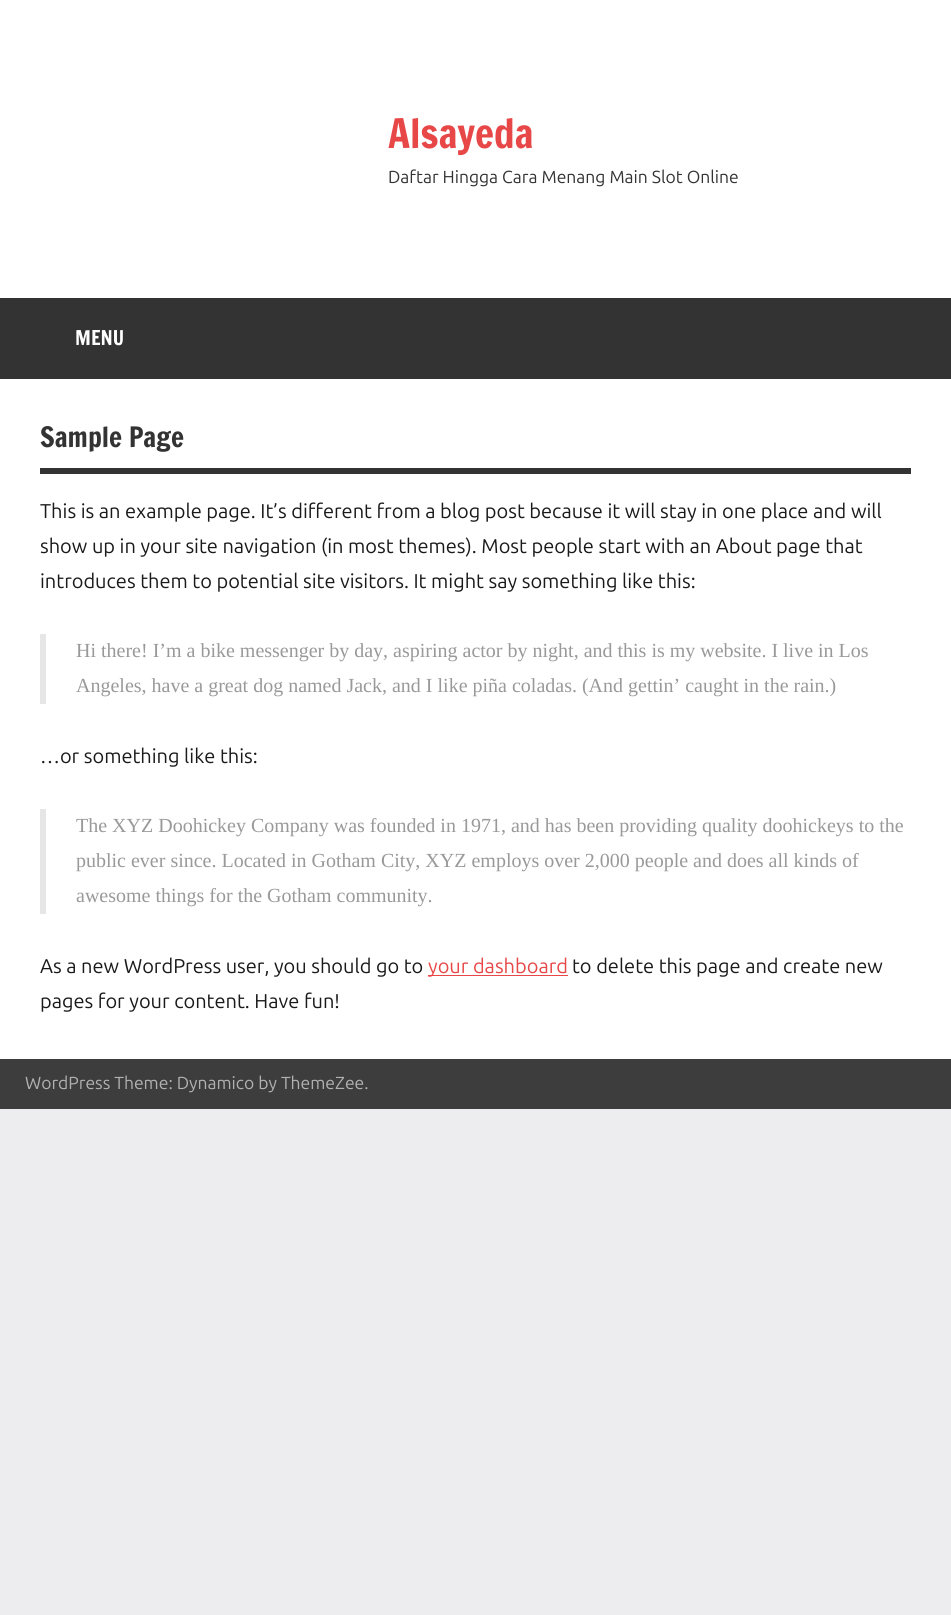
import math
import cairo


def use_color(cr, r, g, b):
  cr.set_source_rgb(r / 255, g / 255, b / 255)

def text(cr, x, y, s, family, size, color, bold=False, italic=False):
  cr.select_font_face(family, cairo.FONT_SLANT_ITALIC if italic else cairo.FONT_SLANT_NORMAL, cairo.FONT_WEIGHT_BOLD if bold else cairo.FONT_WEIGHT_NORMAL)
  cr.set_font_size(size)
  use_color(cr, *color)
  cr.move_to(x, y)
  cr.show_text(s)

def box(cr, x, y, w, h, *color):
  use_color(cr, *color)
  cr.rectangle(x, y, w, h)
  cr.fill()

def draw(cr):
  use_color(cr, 237, 237, 239)
  cr.paint()
  box(cr, 0, 0, 951, 298, 255, 255, 255)
  box(cr, 0, 298, 951, 81, 51, 51, 51)
  box(cr, 0, 379, 951, 680, 255, 255, 255)
  box(cr, 40, 468, 871, 6, 51, 51, 51)
  box(cr, 40, 634, 6, 70, 230, 230, 230)
  box(cr, 40, 809, 6, 105, 230, 230, 230)
  box(cr, 428, 975, 140, 1, 232, 71, 71)
  box(cr, 0, 1059, 951, 50, 61, 61, 61)
  text(cr, 388, 148, "Alsayeda", "Francois One", 40, (232, 71, 71))
  text(cr, 388, 183, "Daftar Hingga Cara Menang Main Slot Online", "Ubuntu", 17.5, (51, 51, 51))
  text(cr, 75, 345, "MENU", "Francois One", 20, (255, 255, 255))
  text(cr, 40, 447, "Sample Page", "Francois One", 27.5, (51, 51, 51))
  text(cr, 40, 518, "This is an example page. It’s different from a blog post because it will stay in one place and will", "Ubuntu", 20, (26, 26, 26))
  text(cr, 40, 553, "show up in your site navigation (in most themes). Most people start with an About page that", "Ubuntu", 20, (26, 26, 26))
  text(cr, 40, 588, "introduces them to potential site visitors. It might say something like this:", "Ubuntu", 20, (26, 26, 26))
  text(cr, 76, 657, "Hi there! I’m a bike messenger by day, aspiring actor by night, and this is my website. I live in Los", "Liberation Serif", 20, (153, 153, 153))
  text(cr, 76, 692, "Angeles, have a great dog named Jack, and I like piña coladas. (And gettin’ caught in the rain.)", "Liberation Serif", 20, (153, 153, 153))
  text(cr, 40, 763, "…or something like this:", "Ubuntu", 20, (26, 26, 26))
  text(cr, 76, 832, "The XYZ Doohickey Company was founded in 1971, and has been providing quality doohickeys to the", "Liberation Serif", 20, (153, 153, 153))
  text(cr, 76, 867, "public ever since. Located in Gotham City, XYZ employs over 2,000 people and does all kinds of", "Liberation Serif", 20, (153, 153, 153))
  text(cr, 76, 902, "awesome things for the Gotham community.", "Liberation Serif", 20, (153, 153, 153))
  text(cr, 40, 973, "As a new WordPress user, you should go to", "Ubuntu", 20, (26, 26, 26))
  text(cr, 428, 973, "your dashboard", "Ubuntu", 20, (232, 71, 71))
  text(cr, 572, 973, "to delete this page and create new", "Ubuntu", 20, (26, 26, 26))
  text(cr, 40, 1008, "pages for your content. Have fun!", "Ubuntu", 20, (26, 26, 26))
  text(cr, 25, 1089, "WordPress Theme: Dynamico by ThemeZee.", "Ubuntu", 17.5, (177, 177, 177))


surface = cairo.ImageSurface(cairo.FORMAT_RGB24, 951, 1615)
cr = cairo.Context(surface)
options = cairo.FontOptions()
options.set_hint_metrics(cairo.HINT_METRICS_OFF)
options.set_hint_style(cairo.HINT_STYLE_NONE)
cr.set_font_options(options)
cr.set_miter_limit(4)
draw(cr)
surface.write_to_png("out.png")
